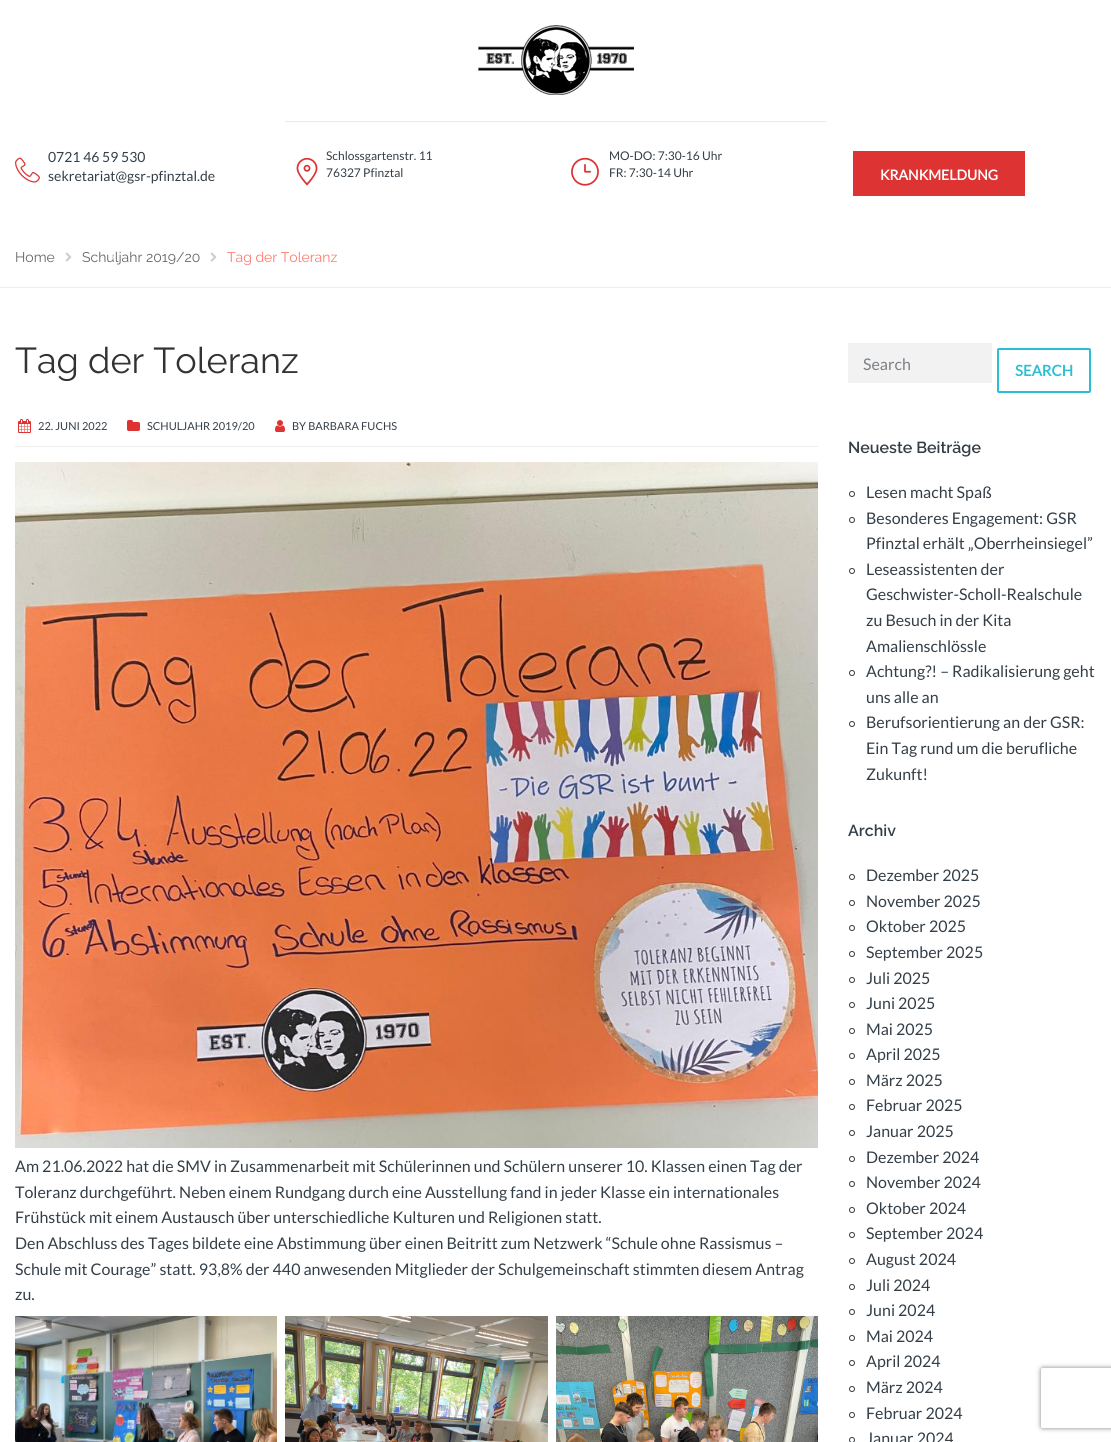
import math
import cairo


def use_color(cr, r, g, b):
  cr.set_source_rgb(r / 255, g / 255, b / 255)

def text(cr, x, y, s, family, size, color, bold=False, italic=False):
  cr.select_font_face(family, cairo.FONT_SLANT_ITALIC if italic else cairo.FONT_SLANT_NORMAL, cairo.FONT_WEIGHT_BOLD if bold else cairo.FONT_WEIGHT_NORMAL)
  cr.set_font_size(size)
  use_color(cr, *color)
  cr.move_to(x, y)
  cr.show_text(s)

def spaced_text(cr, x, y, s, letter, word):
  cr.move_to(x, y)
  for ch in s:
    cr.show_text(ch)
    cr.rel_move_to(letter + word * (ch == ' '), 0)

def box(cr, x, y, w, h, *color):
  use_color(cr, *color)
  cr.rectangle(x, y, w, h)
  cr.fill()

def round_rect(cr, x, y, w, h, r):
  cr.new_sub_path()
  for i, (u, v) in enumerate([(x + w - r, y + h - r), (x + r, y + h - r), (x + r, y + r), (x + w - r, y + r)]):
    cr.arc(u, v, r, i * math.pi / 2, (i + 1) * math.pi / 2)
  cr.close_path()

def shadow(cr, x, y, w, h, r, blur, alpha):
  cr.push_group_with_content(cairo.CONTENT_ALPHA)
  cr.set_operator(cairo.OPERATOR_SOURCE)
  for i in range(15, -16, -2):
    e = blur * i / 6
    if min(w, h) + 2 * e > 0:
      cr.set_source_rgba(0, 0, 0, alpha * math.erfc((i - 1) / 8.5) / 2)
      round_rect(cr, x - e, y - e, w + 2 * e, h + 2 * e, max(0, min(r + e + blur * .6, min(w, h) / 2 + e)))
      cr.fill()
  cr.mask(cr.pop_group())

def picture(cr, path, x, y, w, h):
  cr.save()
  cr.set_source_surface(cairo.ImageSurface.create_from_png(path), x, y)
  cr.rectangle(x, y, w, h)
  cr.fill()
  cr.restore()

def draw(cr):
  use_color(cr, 255, 255, 255)
  cr.paint()
  picture(cr, "img_01.png", 478, 25, 156, 70)
  box(cr, 285, 121, 541, 1, 235, 235, 235)
  picture(cr, "img_02.png", 15, 157, 25, 26)
  picture(cr, "img_03.png", 296, 157, 22, 29)
  picture(cr, "img_04.png", 571, 157, 28, 29)
  box(cr, 853, 151, 172, 45, 221, 51, 51)
  box(cr, 0, 287, 1111, 1, 238, 238, 238)
  picture(cr, "img_05.png", 65, 252, 7, 10)
  picture(cr, "img_05.png", 210, 252, 7, 10)
  box(cr, 15, 446, 803, 1, 238, 238, 238)
  picture(cr, "img_06.png", 18, 419, 13, 14)
  picture(cr, "img_07.png", 127, 420, 13, 11)
  picture(cr, "img_08.png", 275, 420, 10, 12)
  picture(cr, "img_09.png", 15, 462, 803, 686)
  picture(cr, "img_10.png", 15, 1316, 262, 126)
  picture(cr, "img_11.png", 285, 1316, 263, 126)
  picture(cr, "img_12.png", 556, 1316, 262, 126)
  box(cr, 848, 343, 144, 40, 242, 242, 242)
  round_rect(cr, 998, 349, 92, 43, 1)
  use_color(cr, 42, 191, 212)
  cr.stroke()
  cr.arc(852, 494, 2.5, 0, 2 * math.pi)
  use_color(cr, 52, 62, 71)
  cr.set_line_width(1)
  cr.stroke()
  cr.arc(852, 520, 2.5, 0, 2 * math.pi)
  cr.stroke()
  cr.arc(852, 571, 2.5, 0, 2 * math.pi)
  cr.stroke()
  cr.arc(852, 673, 2.5, 0, 2 * math.pi)
  cr.stroke()
  cr.arc(852, 724, 2.5, 0, 2 * math.pi)
  cr.stroke()
  cr.arc(852, 877, 2.5, 0, 2 * math.pi)
  cr.stroke()
  cr.arc(852, 903, 2.5, 0, 2 * math.pi)
  cr.stroke()
  cr.arc(852, 928, 2.5, 0, 2 * math.pi)
  cr.stroke()
  cr.arc(852, 954, 2.5, 0, 2 * math.pi)
  cr.stroke()
  cr.arc(852, 980, 2.5, 0, 2 * math.pi)
  cr.stroke()
  cr.arc(852, 1005, 2.5, 0, 2 * math.pi)
  cr.stroke()
  cr.arc(852, 1031, 2.5, 0, 2 * math.pi)
  cr.stroke()
  cr.arc(852, 1056, 2.5, 0, 2 * math.pi)
  cr.stroke()
  cr.arc(852, 1082, 2.5, 0, 2 * math.pi)
  cr.stroke()
  cr.arc(852, 1107, 2.5, 0, 2 * math.pi)
  cr.stroke()
  cr.arc(852, 1133, 2.5, 0, 2 * math.pi)
  cr.stroke()
  cr.arc(852, 1159, 2.5, 0, 2 * math.pi)
  cr.stroke()
  cr.arc(852, 1184, 2.5, 0, 2 * math.pi)
  cr.stroke()
  cr.arc(852, 1210, 2.5, 0, 2 * math.pi)
  cr.stroke()
  cr.arc(852, 1235, 2.5, 0, 2 * math.pi)
  cr.stroke()
  cr.arc(852, 1261, 2.5, 0, 2 * math.pi)
  cr.stroke()
  cr.arc(852, 1287, 2.5, 0, 2 * math.pi)
  cr.stroke()
  cr.arc(852, 1312, 2.5, 0, 2 * math.pi)
  cr.stroke()
  cr.arc(852, 1338, 2.5, 0, 2 * math.pi)
  cr.stroke()
  cr.arc(852, 1363, 2.5, 0, 2 * math.pi)
  cr.stroke()
  cr.arc(852, 1389, 2.5, 0, 2 * math.pi)
  cr.stroke()
  cr.arc(852, 1415, 2.5, 0, 2 * math.pi)
  cr.stroke()
  cr.arc(852, 1440, 2.5, 0, 2 * math.pi)
  cr.stroke()
  cr.save()
  cr.set_fill_rule(cairo.FILL_RULE_EVEN_ODD)
  cr.new_path()
  cr.move_to(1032, 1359)
  cr.line_to(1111, 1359)
  cr.line_to(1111, 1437)
  cr.line_to(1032, 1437)
  cr.close_path()
  cr.move_to(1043, 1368)
  cr.line_to(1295, 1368)
  cr.curve_to(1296, 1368, 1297, 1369, 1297, 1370)
  cr.line_to(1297, 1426)
  cr.curve_to(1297, 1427, 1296, 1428, 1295, 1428)
  cr.line_to(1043, 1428)
  cr.curve_to(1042, 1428, 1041, 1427, 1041, 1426)
  cr.line_to(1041, 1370)
  cr.curve_to(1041, 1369, 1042, 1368, 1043, 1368)
  cr.close_path()
  cr.clip()
  use_color(cr, 128, 128, 128)
  shadow(cr, 1041, 1368, 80, 60, 2, 2.5, 1)
  cr.restore()
  text(cr, 48, 162, "0721 46 59 530", "Lato", 14, (52, 62, 71))
  text(cr, 48, 181, "sekretariat@gsr-pfinztal.de", "Lato", 14, (52, 62, 71))
  text(cr, 326, 160, "Schlossgartenstr. 11", "Lato", 12, (52, 62, 71))
  text(cr, 326, 177, "76327 Pfinztal", "Lato", 12, (52, 62, 71))
  text(cr, 609, 160, "MO-DO: 7:30-16 Uhr", "Lato", 12, (52, 62, 71))
  text(cr, 609, 177, "FR: 7:30-14 Uhr", "Lato", 12, (52, 62, 71))
  text(cr, 880, 180, "KRANKMELDUNG", "Lato", 14, (255, 255, 255), bold=True)
  text(cr, 15, 262, "Home", "Raleway", 14, (102, 102, 102))
  text(cr, 82, 262, "Schuljahr 2019/20", "Raleway", 14, (102, 102, 102))
  text(cr, 227, 262, "Tag der Toleranz", "Raleway", 14, (255, 122, 109))
  cr.select_font_face("Lato")
  cr.set_font_size(10)
  use_color(cr, 255, 255, 255)
  spaced_text(cr, 111, 260, "x", 1, 0)
  text(cr, 15, 373, "Tag der Toleranz", "Raleway", 36, (51, 51, 51))
  text(cr, 38, 430, "22. JUNI 2022", "Lato", 11, (52, 62, 71))
  text(cr, 147, 430, "SCHULJAHR 2019/20", "Lato", 11, (52, 62, 71))
  text(cr, 292, 430, "BY BARBARA FUCHS", "Lato", 11, (52, 62, 71))
  text(cr, 15, 1172, "Am 21.06.2022 hat die SMV in Zusammenarbeit mit Schülerinnen und Schülern unserer 10. Klassen einen Tag der", "Lato", 16, (52, 62, 71))
  text(cr, 15, 1198, "Toleranz durchgeführt. Neben einem Rundgang durch eine Ausstellung fand in jeder Klasse ein internationales", "Lato", 16, (52, 62, 71))
  text(cr, 15, 1223, "Frühstück mit einem Austausch über unterschiedliche Kulturen und Religionen statt.", "Lato", 16, (52, 62, 71))
  text(cr, 15, 1249, "Den Abschluss des Tages bildete eine Abstimmung über einen Beitritt zum Netzwerk “Schule ohne Rassismus –", "Lato", 16, (52, 62, 71))
  text(cr, 15, 1275, "Schule mit Courage” statt. 93,8% der 440 anwesenden Mitglieder der Schulgemeinschaft stimmten diesem Antrag", "Lato", 16, (52, 62, 71))
  text(cr, 15, 1300, "zu.", "Lato", 16, (52, 62, 71))
  text(cr, 863, 370, "Search", "Lato", 16, (123, 128, 133))
  text(cr, 1015, 376, "SEARCH", "Lato", 15, (42, 191, 212), bold=True)
  text(cr, 848, 453, "Neueste Beiträge", "Raleway SemiBold", 16, (52, 62, 71))
  text(cr, 866, 498, "Lesen macht Spaß", "Lato", 16, (52, 62, 71))
  text(cr, 866, 524, "Besonderes Engagement: GSR", "Lato", 16, (52, 62, 71))
  text(cr, 866, 549, "Pfinztal erhält „Oberrheinsiegel”", "Lato", 16, (52, 62, 71))
  text(cr, 866, 575, "Leseassistenten der", "Lato", 16, (52, 62, 71))
  text(cr, 866, 600, "Geschwister-Scholl-Realschule", "Lato", 16, (52, 62, 71))
  text(cr, 866, 626, "zu Besuch in der Kita", "Lato", 16, (52, 62, 71))
  text(cr, 866, 652, "Amalienschlössle", "Lato", 16, (52, 62, 71))
  text(cr, 866, 677, "Achtung?! – Radikalisierung geht", "Lato", 16, (52, 62, 71))
  text(cr, 866, 703, "uns alle an", "Lato", 16, (52, 62, 71))
  text(cr, 866, 728, "Berufsorientierung an der GSR:", "Lato", 16, (52, 62, 71))
  text(cr, 866, 754, "Ein Tag rund um die berufliche", "Lato", 16, (52, 62, 71))
  text(cr, 866, 780, "Zukunft!", "Lato", 16, (52, 62, 71))
  text(cr, 848, 836, "Archiv", "Raleway SemiBold", 16, (52, 62, 71))
  text(cr, 866, 881, "Dezember 2025", "Lato", 16, (52, 62, 71))
  text(cr, 866, 907, "November 2025", "Lato", 16, (52, 62, 71))
  text(cr, 866, 932, "Oktober 2025", "Lato", 16, (52, 62, 71))
  text(cr, 866, 958, "September 2025", "Lato", 16, (52, 62, 71))
  text(cr, 866, 984, "Juli 2025", "Lato", 16, (52, 62, 71))
  text(cr, 866, 1009, "Juni 2025", "Lato", 16, (52, 62, 71))
  text(cr, 866, 1035, "Mai 2025", "Lato", 16, (52, 62, 71))
  text(cr, 866, 1060, "April 2025", "Lato", 16, (52, 62, 71))
  text(cr, 866, 1086, "März 2025", "Lato", 16, (52, 62, 71))
  text(cr, 866, 1111, "Februar 2025", "Lato", 16, (52, 62, 71))
  text(cr, 866, 1137, "Januar 2025", "Lato", 16, (52, 62, 71))
  text(cr, 866, 1163, "Dezember 2024", "Lato", 16, (52, 62, 71))
  text(cr, 866, 1188, "November 2024", "Lato", 16, (52, 62, 71))
  text(cr, 866, 1214, "Oktober 2024", "Lato", 16, (52, 62, 71))
  text(cr, 866, 1239, "September 2024", "Lato", 16, (52, 62, 71))
  text(cr, 866, 1265, "August 2024", "Lato", 16, (52, 62, 71))
  text(cr, 866, 1291, "Juli 2024", "Lato", 16, (52, 62, 71))
  text(cr, 866, 1316, "Juni 2024", "Lato", 16, (52, 62, 71))
  text(cr, 866, 1342, "Mai 2024", "Lato", 16, (52, 62, 71))
  text(cr, 866, 1367, "April 2024", "Lato", 16, (52, 62, 71))
  text(cr, 866, 1393, "März 2024", "Lato", 16, (52, 62, 71))
  text(cr, 866, 1419, "Februar 2024", "Lato", 16, (52, 62, 71))
  text(cr, 866, 1444, "Januar 2024", "Lato", 16, (52, 62, 71))


surface = cairo.ImageSurface(cairo.FORMAT_RGB24, 1111, 1442)
cr = cairo.Context(surface)
options = cairo.FontOptions()
options.set_hint_metrics(cairo.HINT_METRICS_OFF)
options.set_hint_style(cairo.HINT_STYLE_NONE)
cr.set_font_options(options)
cr.set_miter_limit(4)
draw(cr)
surface.write_to_png("out.png")
